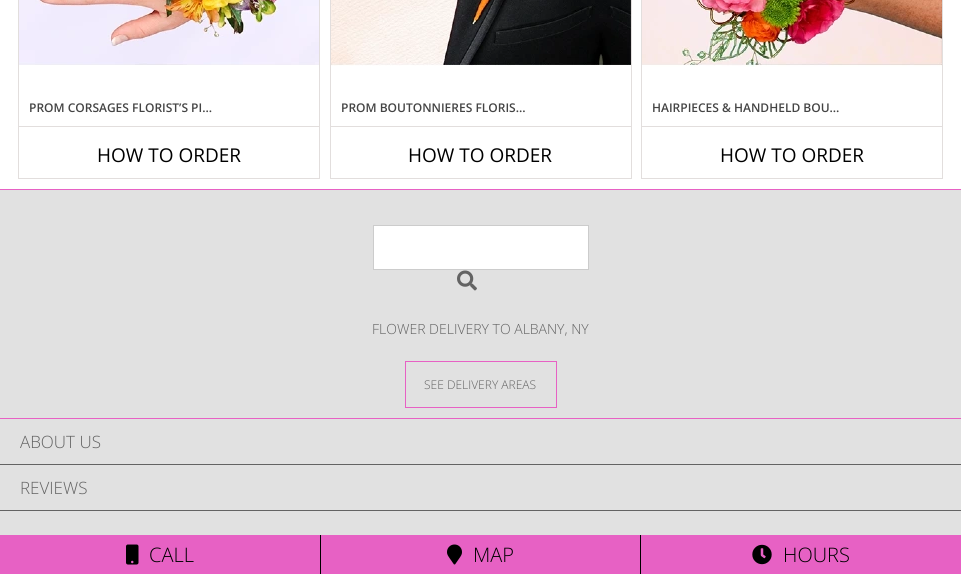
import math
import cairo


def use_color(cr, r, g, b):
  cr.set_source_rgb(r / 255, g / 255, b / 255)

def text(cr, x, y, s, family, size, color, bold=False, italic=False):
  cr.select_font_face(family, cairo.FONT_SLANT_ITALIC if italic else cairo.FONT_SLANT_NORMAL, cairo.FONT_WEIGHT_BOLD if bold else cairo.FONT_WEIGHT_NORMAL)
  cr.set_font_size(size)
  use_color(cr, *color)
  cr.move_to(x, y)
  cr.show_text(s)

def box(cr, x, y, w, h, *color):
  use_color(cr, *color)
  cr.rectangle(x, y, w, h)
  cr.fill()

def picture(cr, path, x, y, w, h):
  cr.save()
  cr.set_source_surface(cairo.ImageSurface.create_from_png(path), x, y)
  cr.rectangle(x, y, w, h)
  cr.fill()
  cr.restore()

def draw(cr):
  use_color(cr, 255, 255, 255)
  cr.paint()
  box(cr, 319, 0, 1, 179, 226, 222, 221)
  box(cr, 18, 178, 302, 1, 226, 222, 221)
  box(cr, 18, 0, 1, 179, 226, 222, 221)
  picture(cr, "img_01.png", 19, 0, 300, 65)
  box(cr, 19, 126, 300, 1, 226, 222, 221)
  box(cr, 631, 0, 1, 179, 226, 222, 221)
  box(cr, 330, 178, 302, 1, 226, 222, 221)
  box(cr, 330, 0, 1, 179, 226, 222, 221)
  picture(cr, "img_02.png", 331, 0, 300, 66)
  box(cr, 331, 126, 300, 1, 226, 222, 221)
  box(cr, 942, 0, 1, 179, 226, 222, 221)
  box(cr, 641, 178, 302, 1, 226, 222, 221)
  box(cr, 641, 0, 1, 179, 226, 222, 221)
  picture(cr, "img_03.png", 642, 0, 300, 67)
  box(cr, 642, 126, 300, 1, 226, 222, 221)
  box(cr, 0, 190, 961, 228, 225, 225, 225)
  box(cr, 0, 189, 961, 1, 231, 97, 196)
  box(cr, 0, 418, 961, 1, 231, 97, 196)
  use_color(cr, 255, 255, 255)
  cr.rectangle(373.5, 225.5, 215, 44)
  cr.fill_preserve()
  use_color(cr, 204, 204, 204)
  cr.set_line_width(1)
  cr.stroke()
  picture(cr, "img_04.png", 457, 270, 20, 21)
  cr.rectangle(405.5, 361.5, 151, 46)
  use_color(cr, 231, 97, 196)
  cr.stroke()
  box(cr, 0, 419, 961, 116, 225, 225, 225)
  box(cr, 0, 464, 961, 1, 99, 99, 99)
  box(cr, 0, 510, 961, 1, 99, 99, 99)
  box(cr, 0, 535, 320, 39, 231, 97, 196)
  picture(cr, "img_05.png", 126, 544, 13, 21)
  box(cr, 321, 535, 319, 39, 231, 97, 196)
  box(cr, 320, 535, 1, 39, 0, 0, 0)
  picture(cr, "img_06.png", 447, 544, 15, 21)
  box(cr, 641, 535, 320, 39, 231, 97, 196)
  box(cr, 640, 535, 1, 39, 0, 0, 0)
  picture(cr, "img_07.png", 752, 544, 20, 21)
  text(cr, 29, 112, "PROM CORSAGES FLORIST’S PI…", "Open Sans SemiBold", 12, (68, 68, 68))
  text(cr, 97, 162, "HOW TO ORDER", "Open Sans", 19, (0, 0, 0))
  text(cr, 341, 112, "PROM BOUTONNIERES FLORIS…", "Open Sans SemiBold", 12, (68, 68, 68))
  text(cr, 408, 162, "HOW TO ORDER", "Open Sans", 19, (0, 0, 0))
  text(cr, 652, 112, "HAIRPIECES & HANDHELD BOU…", "Open Sans SemiBold", 12, (68, 68, 68))
  text(cr, 720, 162, "HOW TO ORDER", "Open Sans", 19, (0, 0, 0))
  text(cr, 372, 334, "FLOWER DELIVERY TO ALBANY, NY", "Open Sans Light", 14, (99, 99, 99))
  text(cr, 424, 389, "SEE DELIVERY AREAS", "Open Sans Light", 12, (99, 99, 99))
  text(cr, 20, 448, "ABOUT US", "Open Sans Light", 17, (99, 99, 99))
  text(cr, 20, 494, "REVIEWS", "Open Sans Light", 17, (99, 99, 99))
  text(cr, 149, 562, "CALL", "Open Sans Light", 20, (0, 0, 0))
  text(cr, 473, 562, "MAP", "Open Sans Light", 20, (0, 0, 0))
  text(cr, 783, 562, "HOURS", "Open Sans Light", 20, (0, 0, 0))


surface = cairo.ImageSurface(cairo.FORMAT_RGB24, 961, 574)
cr = cairo.Context(surface)
options = cairo.FontOptions()
options.set_hint_metrics(cairo.HINT_METRICS_OFF)
options.set_hint_style(cairo.HINT_STYLE_NONE)
cr.set_font_options(options)
cr.set_miter_limit(4)
draw(cr)
surface.write_to_png("out.png")
